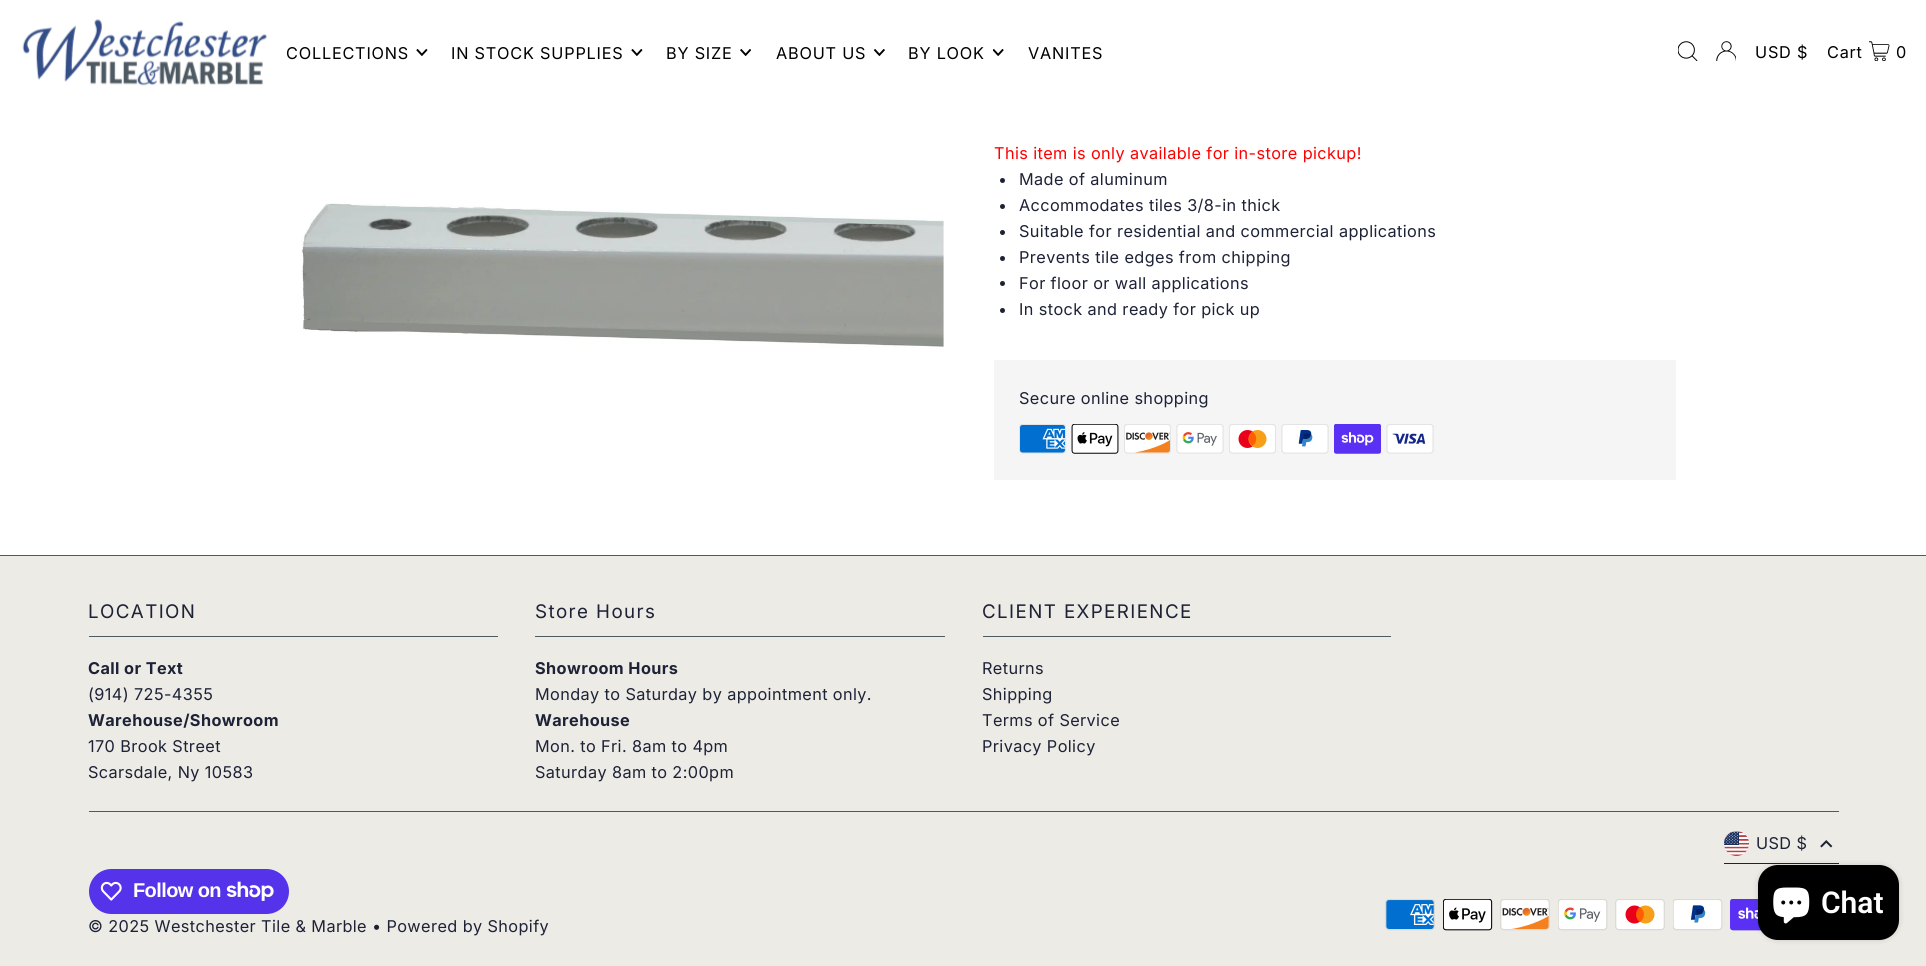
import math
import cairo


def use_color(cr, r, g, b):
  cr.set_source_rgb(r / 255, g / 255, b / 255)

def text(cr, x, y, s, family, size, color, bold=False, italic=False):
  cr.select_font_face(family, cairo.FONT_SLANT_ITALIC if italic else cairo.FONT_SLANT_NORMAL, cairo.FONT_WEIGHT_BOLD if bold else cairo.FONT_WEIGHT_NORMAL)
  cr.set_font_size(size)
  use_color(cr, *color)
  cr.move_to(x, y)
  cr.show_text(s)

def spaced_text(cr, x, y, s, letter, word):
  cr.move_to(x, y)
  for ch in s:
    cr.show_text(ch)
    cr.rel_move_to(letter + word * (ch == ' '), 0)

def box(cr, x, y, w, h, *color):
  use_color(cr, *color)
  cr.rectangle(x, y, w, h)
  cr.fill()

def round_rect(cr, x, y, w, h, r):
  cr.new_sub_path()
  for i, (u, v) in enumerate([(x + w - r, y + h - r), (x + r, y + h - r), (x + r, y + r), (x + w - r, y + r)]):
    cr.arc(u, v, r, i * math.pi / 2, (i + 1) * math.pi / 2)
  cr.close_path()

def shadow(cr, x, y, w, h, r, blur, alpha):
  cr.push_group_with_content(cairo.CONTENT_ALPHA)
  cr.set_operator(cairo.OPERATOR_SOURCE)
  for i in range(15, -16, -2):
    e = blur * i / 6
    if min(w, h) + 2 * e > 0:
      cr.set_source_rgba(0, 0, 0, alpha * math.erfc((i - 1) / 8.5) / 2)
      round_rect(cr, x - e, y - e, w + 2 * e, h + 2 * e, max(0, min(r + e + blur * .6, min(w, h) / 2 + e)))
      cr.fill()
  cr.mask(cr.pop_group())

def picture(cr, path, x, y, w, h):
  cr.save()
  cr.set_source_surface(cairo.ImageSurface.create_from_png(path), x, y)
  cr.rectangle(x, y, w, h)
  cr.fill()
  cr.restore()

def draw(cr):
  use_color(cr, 255, 255, 255)
  cr.paint()
  picture(cr, "img_01.png", 22, 19, 245, 67)
  picture(cr, "img_02.png", 416, 49, 12, 7)
  picture(cr, "img_02.png", 631, 49, 12, 7)
  picture(cr, "img_03.png", 740, 49, 11, 7)
  picture(cr, "img_04.png", 874, 49, 11, 7)
  picture(cr, "img_05.png", 993, 49, 11, 7)
  picture(cr, "img_06.png", 1678, 41, 20, 20)
  picture(cr, "img_07.png", 1716, 41, 20, 20)
  picture(cr, "img_08.png", 1869, 41, 21, 20)
  picture(cr, "img_09.png", 301, 203, 643, 145)
  use_color(cr, 29, 34, 54)
  cr.arc(1002.5, 180.5, 2.5, 0, 2 * math.pi)
  cr.fill()
  cr.arc(1002.5, 206.5, 2.5, 0, 2 * math.pi)
  cr.fill()
  cr.arc(1002.5, 232.5, 2.5, 0, 2 * math.pi)
  cr.fill()
  cr.arc(1002.5, 258.5, 2.5, 0, 2 * math.pi)
  cr.fill()
  cr.arc(1002.5, 283.5, 2.5, 0, 2 * math.pi)
  cr.fill()
  cr.arc(1002.5, 310.5, 2.5, 0, 2 * math.pi)
  cr.fill()
  box(cr, 994, 360, 682, 120, 245, 245, 245)
  picture(cr, "img_10.png", 1019, 424, 47, 30)
  picture(cr, "img_11.png", 1071, 424, 48, 30)
  picture(cr, "img_12.png", 1124, 424, 47, 30)
  picture(cr, "img_13.png", 1176, 424, 48, 30)
  picture(cr, "img_14.png", 1229, 424, 47, 30)
  picture(cr, "img_15.png", 1281, 424, 48, 30)
  picture(cr, "img_16.png", 1334, 424, 47, 30)
  picture(cr, "img_17.png", 1386, 424, 48, 30)
  box(cr, 0, 556, 1926, 410, 237, 235, 230)
  box(cr, 0, 555, 1926, 1, 78, 90, 99)
  box(cr, 89, 636, 409, 1, 78, 90, 99)
  box(cr, 535, 636, 410, 1, 78, 90, 99)
  box(cr, 983, 636, 408, 1, 78, 90, 99)
  box(cr, 89, 811, 1750, 1, 78, 90, 99)
  box(cr, 1724, 863, 115, 1, 29, 34, 54)
  picture(cr, "img_18.png", 1724, 831, 25, 25)
  picture(cr, "img_19.png", 1820, 840, 13, 8)
  picture(cr, "img_20.png", 1385, 899, 50, 32)
  picture(cr, "img_21.png", 1443, 899, 50, 32)
  picture(cr, "img_22.png", 1500, 899, 50, 32)
  picture(cr, "img_23.png", 1558, 899, 50, 32)
  picture(cr, "img_24.png", 1615, 899, 50, 32)
  picture(cr, "img_25.png", 1673, 899, 50, 32)
  picture(cr, "img_26.png", 1730, 899, 32, 32)
  use_color(cr, 84, 51, 235)
  round_rect(cr, 89, 869, 200, 45, 22.5)
  cr.fill()
  picture(cr, "img_27.png", 100, 881, 22, 20)
  picture(cr, "img_28.png", 226, 881, 48, 20)
  use_color(cr, 0, 0, 0)
  shadow(cr, 1758, 865, 141, 75, 20, 3, 0.15)
  use_color(cr, 0, 0, 0)
  round_rect(cr, 1758, 865, 141, 75, 20)
  cr.fill()
  picture(cr, "img_29.png", 1773, 887, 37, 37)
  cr.select_font_face("Inter")
  cr.set_font_size(16.25)
  spaced_text(cr, 286, 59, "COLLECTIONS", 0.8, 0)
  spaced_text(cr, 451, 59, "IN STOCK SUPPLIES", 0.8, 0)
  spaced_text(cr, 666, 59, "BY SIZE", 0.8, 0)
  spaced_text(cr, 776, 59, "ABOUT US", 0.8, 0)
  spaced_text(cr, 908, 59, "BY LOOK", 0.8, 0)
  spaced_text(cr, 1028, 59, "VANITES", 0.8, 0)
  spaced_text(cr, 1755, 58, "USD $", 0.8, 0)
  spaced_text(cr, 1827, 58, "Cart", 0.8, 0)
  spaced_text(cr, 1896, 58, "0", 0.8, 0)
  use_color(cr, 255, 0, 0)
  spaced_text(cr, 994, 159, "This item is only available for in-store pickup!", 0.4, 0)
  use_color(cr, 29, 34, 54)
  spaced_text(cr, 1019, 185, "Made of aluminum", 0.4, 0)
  spaced_text(cr, 1019, 211, "Accommodates tiles 3/8-in thick", 0.4, 0)
  spaced_text(cr, 1019, 237, "Suitable for residential and commercial applications", 0.4, 0)
  spaced_text(cr, 1019, 263, "Prevents tile edges from chipping", 0.4, 0)
  spaced_text(cr, 1019, 289, "For floor or wall applications", 0.4, 0)
  spaced_text(cr, 1019, 315, "In stock and ready for pick up", 0.4, 0)
  spaced_text(cr, 1019, 404, "Secure online shopping", 0.4, 0)
  cr.set_font_size(18.75)
  spaced_text(cr, 88, 618, "LOCATION", 1.4, 0)
  cr.select_font_face("Inter", cairo.FONT_SLANT_NORMAL, cairo.FONT_WEIGHT_BOLD)
  cr.set_font_size(16.25)
  spaced_text(cr, 88, 674, "Call or Text", 0.4, 0)
  cr.select_font_face("Inter")
  spaced_text(cr, 88, 700, "(914) 725-4355", 0.4, 0)
  cr.select_font_face("Inter", cairo.FONT_SLANT_NORMAL, cairo.FONT_WEIGHT_BOLD)
  spaced_text(cr, 88, 726, "Warehouse/Showroom", 0.4, 0)
  cr.select_font_face("Inter")
  spaced_text(cr, 88, 752, "170 Brook Street", 0.4, 0)
  spaced_text(cr, 88, 778, "Scarsdale, Ny 10583", 0.4, 0)
  cr.set_font_size(18.75)
  spaced_text(cr, 535, 618, "Store Hours", 1.4, 0)
  cr.select_font_face("Inter", cairo.FONT_SLANT_NORMAL, cairo.FONT_WEIGHT_BOLD)
  cr.set_font_size(16.25)
  spaced_text(cr, 535, 674, "Showroom Hours", 0.4, 0)
  cr.select_font_face("Inter")
  spaced_text(cr, 535, 700, "Monday to Saturday by appointment only.", 0.4, 0)
  cr.select_font_face("Inter", cairo.FONT_SLANT_NORMAL, cairo.FONT_WEIGHT_BOLD)
  spaced_text(cr, 535, 726, "Warehouse", 0.4, 0)
  cr.select_font_face("Inter")
  spaced_text(cr, 535, 752, "Mon. to Fri. 8am to 4pm", 0.4, 0)
  spaced_text(cr, 535, 778, "Saturday 8am to 2:00pm", 0.4, 0)
  cr.set_font_size(18.75)
  spaced_text(cr, 982, 618, "CLIENT EXPERIENCE", 1.4, 0)
  cr.set_font_size(16.25)
  spaced_text(cr, 982, 674, "Returns", 0.4, 0)
  spaced_text(cr, 982, 700, "Shipping", 0.4, 0)
  spaced_text(cr, 982, 726, "Terms of Service", 0.4, 0)
  spaced_text(cr, 982, 752, "Privacy Policy", 0.4, 0)
  spaced_text(cr, 1756, 849, "USD $", 0.4, 0)
  cr.select_font_face("Liberation Sans", cairo.FONT_SLANT_NORMAL, cairo.FONT_WEIGHT_BOLD)
  cr.set_font_size(20)
  use_color(cr, 255, 255, 255)
  spaced_text(cr, 133, 897, "Follow on", -0.6, 0)
  cr.select_font_face("Inter")
  cr.set_font_size(16.25)
  use_color(cr, 29, 34, 54)
  spaced_text(cr, 88, 932, "© 2025 Westchester Tile & Marble • Powered by Shopify", 0.4, 0)
  text(cr, 1821, 913, "Chat", "Roboto SemiBold", 30, (255, 255, 255))


surface = cairo.ImageSurface(cairo.FORMAT_RGB24, 1926, 966)
cr = cairo.Context(surface)
options = cairo.FontOptions()
options.set_hint_metrics(cairo.HINT_METRICS_OFF)
options.set_hint_style(cairo.HINT_STYLE_NONE)
cr.set_font_options(options)
cr.set_miter_limit(4)
draw(cr)
surface.write_to_png("out.png")
